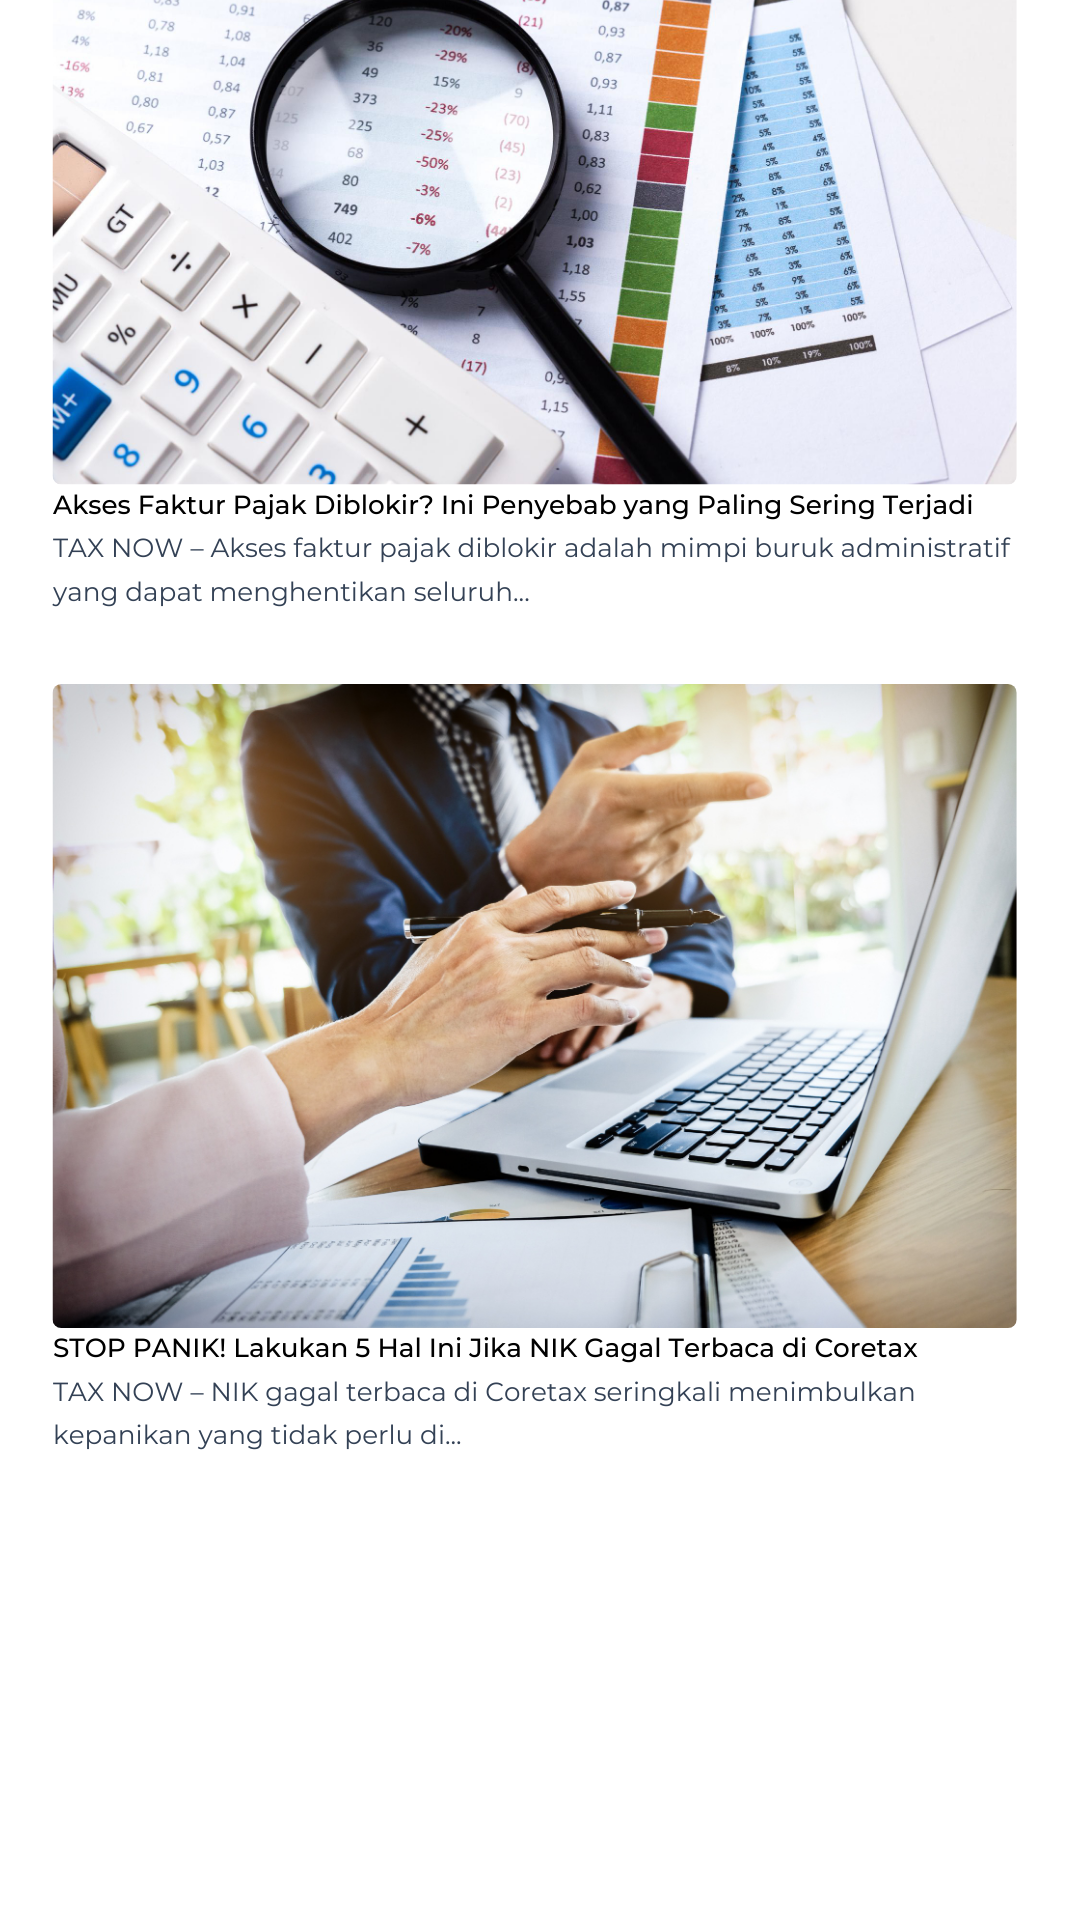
import math
import cairo


def use_color(cr, r, g, b):
  cr.set_source_rgb(r / 255, g / 255, b / 255)

def text(cr, x, y, s, family, size, color, bold=False, italic=False):
  cr.select_font_face(family, cairo.FONT_SLANT_ITALIC if italic else cairo.FONT_SLANT_NORMAL, cairo.FONT_WEIGHT_BOLD if bold else cairo.FONT_WEIGHT_NORMAL)
  cr.set_font_size(size)
  use_color(cr, *color)
  cr.move_to(x, y)
  cr.show_text(s)

def picture(cr, path, x, y, w, h):
  cr.save()
  cr.set_source_surface(cairo.ImageSurface.create_from_png(path), x, y)
  cr.rectangle(x, y, w, h)
  cr.fill()
  cr.restore()

def draw(cr):
  use_color(cr, 255, 255, 255)
  cr.paint()
  picture(cr, "img_01.png", 52, 0, 965, 485)
  picture(cr, "img_02.png", 52, 684, 965, 644)
  text(cr, 53, 514, "Akses Faktur Pajak Diblokir? Ini Penyebab yang Paling Sering Terjadi", "Montserrat Medium", 26.25, (0, 0, 0))
  text(cr, 53, 557, "TAX NOW – Akses faktur pajak diblokir adalah mimpi buruk administratif", "Montserrat", 26.25, (51, 65, 85))
  text(cr, 53, 601, "yang dapat menghentikan seluruh...", "Montserrat", 26.25, (51, 65, 85))
  text(cr, 53, 1357, "STOP PANIK! Lakukan 5 Hal Ini Jika NIK Gagal Terbaca di Coretax", "Montserrat Medium", 26.25, (0, 0, 0))
  text(cr, 53, 1401, "TAX NOW – NIK gagal terbaca di Coretax seringkali menimbulkan", "Montserrat", 26.25, (51, 65, 85))
  text(cr, 53, 1444, "kepanikan yang tidak perlu di...", "Montserrat", 26.25, (51, 65, 85))


surface = cairo.ImageSurface(cairo.FORMAT_RGB24, 1068, 1914)
cr = cairo.Context(surface)
options = cairo.FontOptions()
options.set_hint_metrics(cairo.HINT_METRICS_OFF)
options.set_hint_style(cairo.HINT_STYLE_NONE)
cr.set_font_options(options)
cr.set_miter_limit(4)
draw(cr)
surface.write_to_png("out.png")
